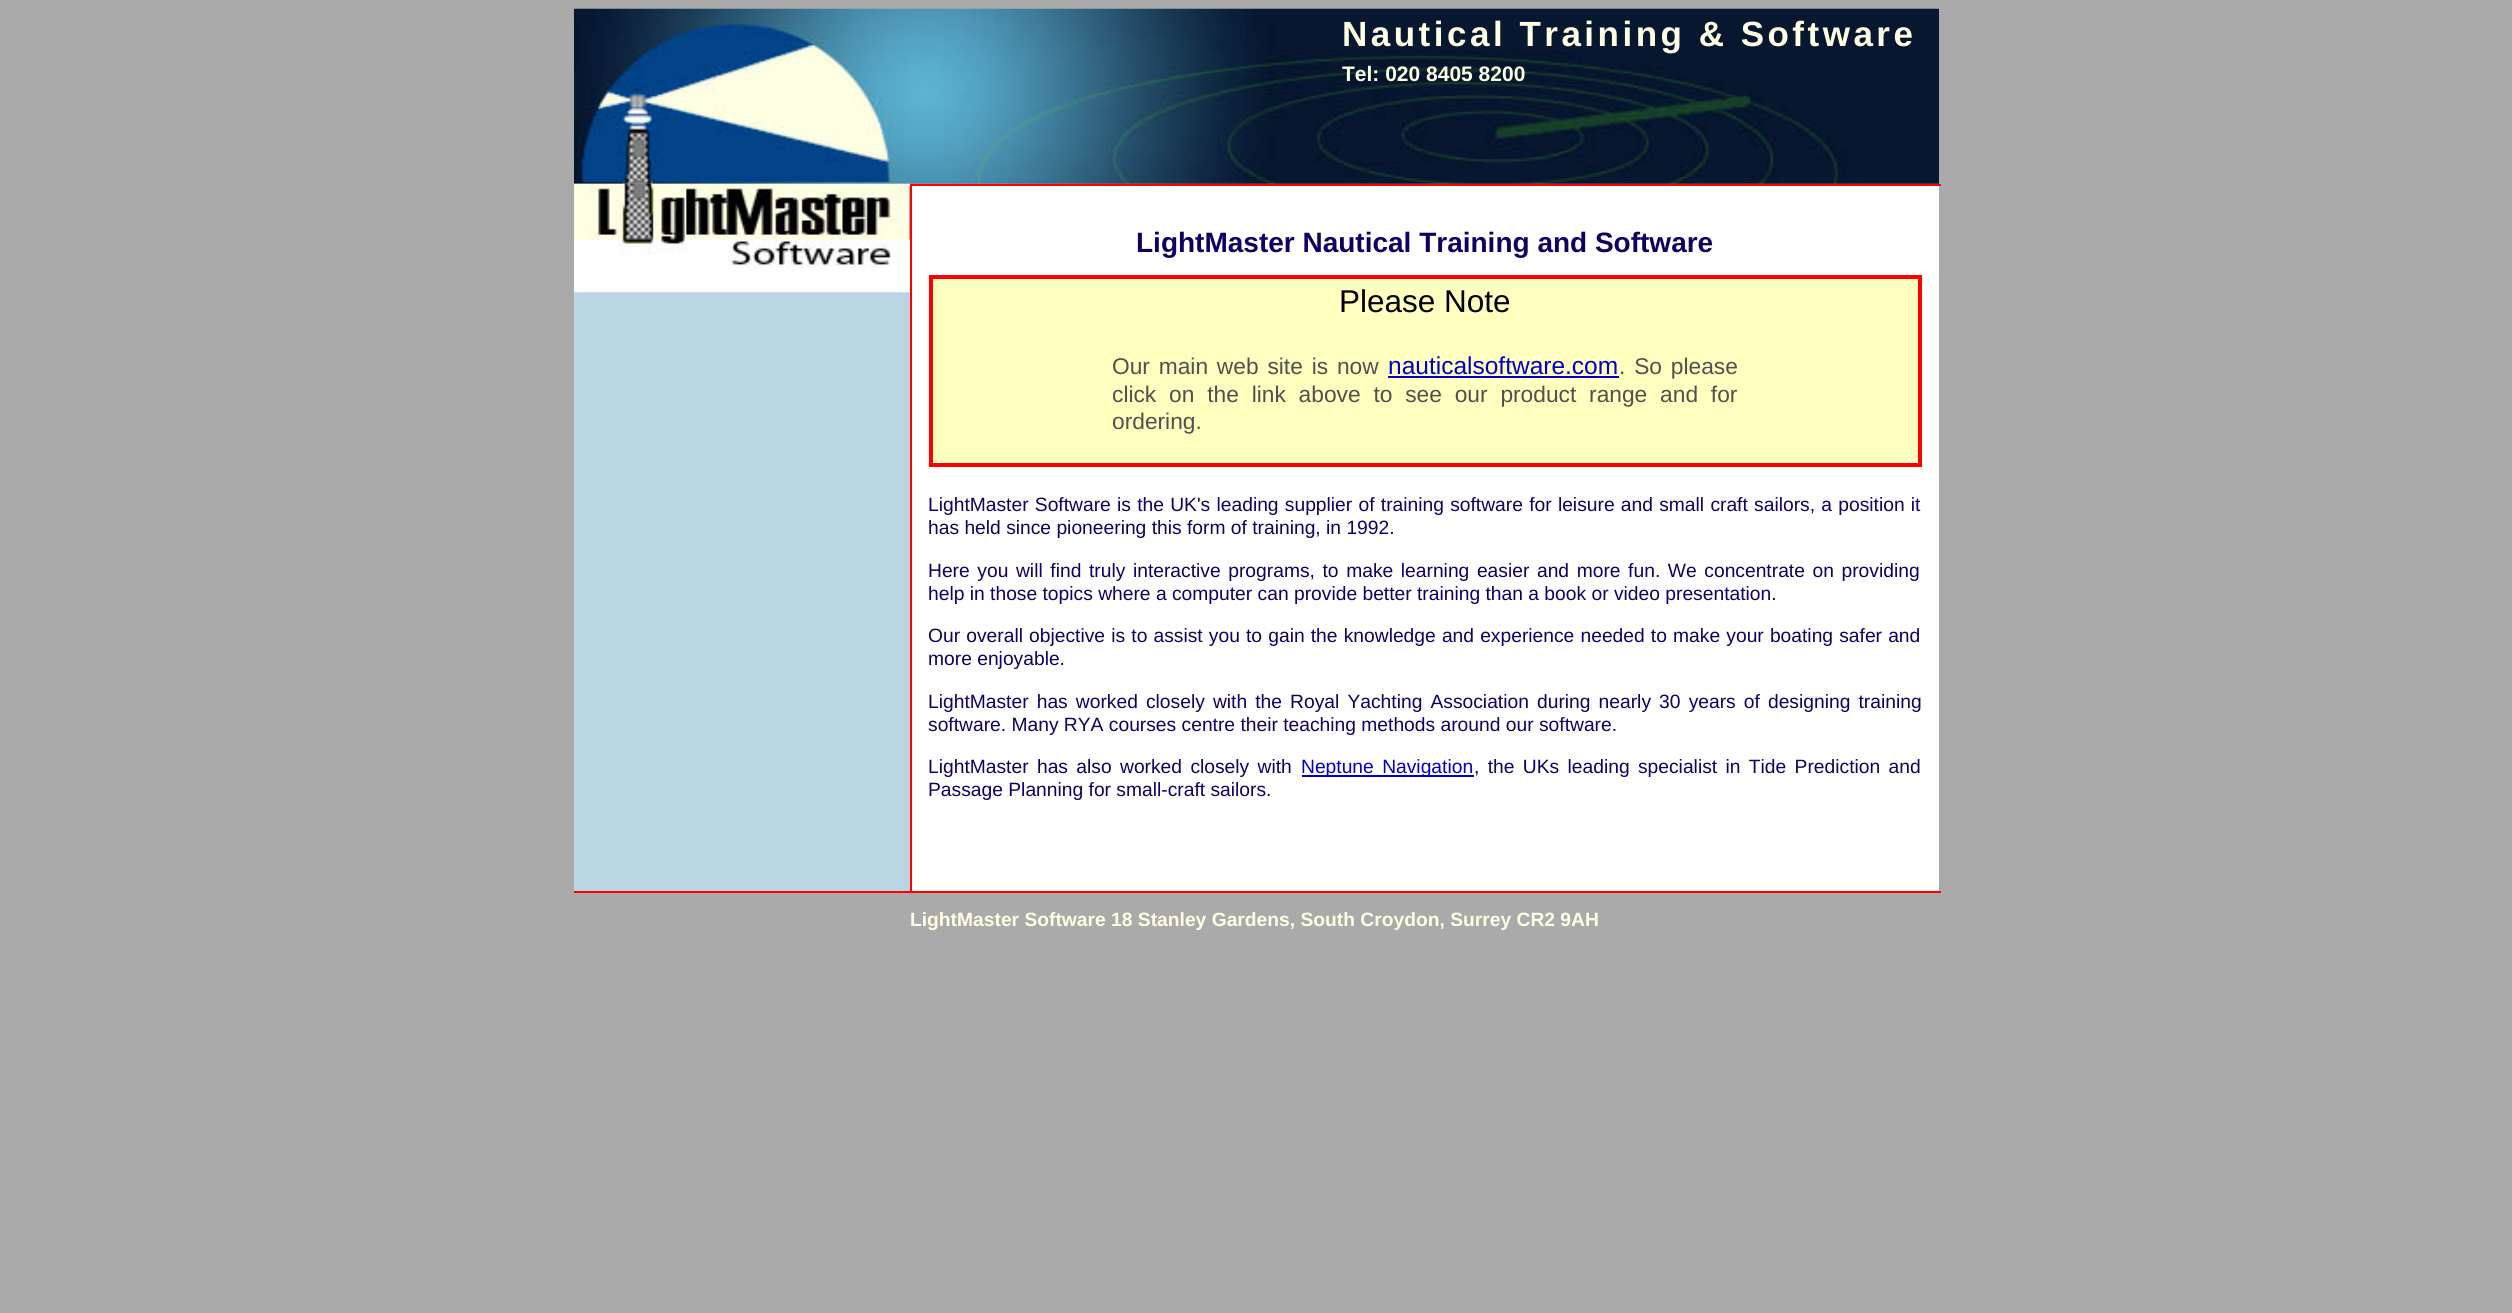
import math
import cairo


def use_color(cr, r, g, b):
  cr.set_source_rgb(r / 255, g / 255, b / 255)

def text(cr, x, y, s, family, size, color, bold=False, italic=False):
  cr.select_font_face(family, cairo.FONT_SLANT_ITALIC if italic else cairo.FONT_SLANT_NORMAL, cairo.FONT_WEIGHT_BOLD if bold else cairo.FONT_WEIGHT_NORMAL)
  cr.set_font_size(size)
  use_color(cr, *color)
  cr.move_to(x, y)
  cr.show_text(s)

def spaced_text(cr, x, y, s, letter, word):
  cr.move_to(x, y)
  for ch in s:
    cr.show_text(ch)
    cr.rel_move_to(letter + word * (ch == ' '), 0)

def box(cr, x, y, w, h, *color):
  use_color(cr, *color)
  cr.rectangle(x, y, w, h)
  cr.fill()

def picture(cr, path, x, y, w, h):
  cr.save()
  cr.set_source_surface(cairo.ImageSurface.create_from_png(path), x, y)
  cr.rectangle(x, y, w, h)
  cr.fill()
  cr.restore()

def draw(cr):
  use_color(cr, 170, 170, 170)
  cr.paint()
  picture(cr, "img_01.png", 574, 8, 1365, 176)
  box(cr, 574, 292, 336, 599, 186, 214, 226)
  box(cr, 910, 891, 1031, 2, 255, 0, 0)
  box(cr, 910, 184, 1031, 2, 255, 0, 0)
  box(cr, 910, 184, 2, 709, 255, 0, 0)
  box(cr, 574, 891, 338, 2, 255, 0, 0)
  picture(cr, "img_02.png", 574, 183, 336, 110)
  box(cr, 912, 186, 1027, 705, 255, 255, 255)
  use_color(cr, 255, 255, 192)
  cr.rectangle(931, 277, 989, 188)
  cr.fill_preserve()
  use_color(cr, 255, 0, 0)
  cr.set_line_width(4)
  cr.stroke()
  box(cr, 1388, 376, 231, 2, 0, 0, 204)
  box(cr, 1302, 775, 172, 2, 0, 0, 204)
  cr.select_font_face("Liberation Sans", cairo.FONT_SLANT_NORMAL, cairo.FONT_WEIGHT_BOLD)
  cr.set_font_size(35)
  use_color(cr, 255, 255, 227)
  spaced_text(cr, 1342, 46, "Nautical Training & Software", 3.5, 0)
  text(cr, 1342, 81, "Tel: 020 8405 8200", "Liberation Sans", 21, (255, 255, 227), bold=True)
  text(cr, 1136, 252, "LightMaster Nautical Training and Software", "Liberation Sans", 28, (15, 0, 99), bold=True)
  text(cr, 1339, 312, "Please Note", "Liberation Sans", 31.5, (0, 0, 0))
  cr.set_font_size(22.75)
  use_color(cr, 80, 80, 80)
  spaced_text(cr, 1112, 374, "Our main web site is now", 0, 2.5)
  text(cr, 1388, 374, "nauticalsoftware.com", "Liberation Sans", 24.5, (0, 0, 204))
  cr.set_font_size(22.75)
  use_color(cr, 80, 80, 80)
  spaced_text(cr, 1619, 374, ". So please", 0, 2.5)
  spaced_text(cr, 1112, 402, "click on the link above to see our product range and for", 0, 6.5)
  text(cr, 1112, 429, "ordering.", "Liberation Sans", 22.75, (80, 80, 80))
  cr.set_font_size(19.25)
  use_color(cr, 15, 0, 99)
  spaced_text(cr, 928, 511, "LightMaster Software is the UK's leading supplier of training software for leisure and small craft sailors, a position it", 0, 0.9)
  text(cr, 928, 534, "has held since pioneering this form of training, in 1992.", "Liberation Sans", 19.25, (15, 0, 99))
  spaced_text(cr, 928, 577, "Here you will find truly interactive programs, to make learning easier and more fun. We concentrate on providing", 0, 2.25)
  text(cr, 928, 600, "help in those topics where a computer can provide better training than a book or video presentation.", "Liberation Sans", 19.25, (15, 0, 99))
  spaced_text(cr, 928, 642, "Our overall objective is to assist you to gain the knowledge and experience needed to make your boating safer and", 0, 0.8)
  text(cr, 928, 665, "more enjoyable.", "Liberation Sans", 19.25, (15, 0, 99))
  spaced_text(cr, 928, 708, "LightMaster has worked closely with the Royal Yachting Association during nearly 30 years of designing training", 0, 2.75)
  text(cr, 928, 731, "software. Many RYA courses centre their teaching methods around our software.", "Liberation Sans", 19.25, (15, 0, 99))
  spaced_text(cr, 928, 773, "LightMaster has also worked closely with", 0, 3)
  use_color(cr, 0, 0, 204)
  spaced_text(cr, 1301, 773, "Neptune Navigation", 0, 3)
  use_color(cr, 15, 0, 99)
  spaced_text(cr, 1474, 773, ", the UKs leading specialist in Tide Prediction and", 0, 3)
  text(cr, 928, 796, "Passage Planning for small-craft sailors.", "Liberation Sans", 19.25, (15, 0, 99))
  text(cr, 910, 926, "LightMaster Software 18 Stanley Gardens, South Croydon, Surrey CR2 9AH", "Liberation Sans", 19.25, (255, 255, 227), bold=True)


surface = cairo.ImageSurface(cairo.FORMAT_RGB24, 2512, 1313)
cr = cairo.Context(surface)
options = cairo.FontOptions()
options.set_hint_metrics(cairo.HINT_METRICS_OFF)
options.set_hint_style(cairo.HINT_STYLE_NONE)
cr.set_font_options(options)
cr.set_miter_limit(4)
draw(cr)
surface.write_to_png("out.png")
